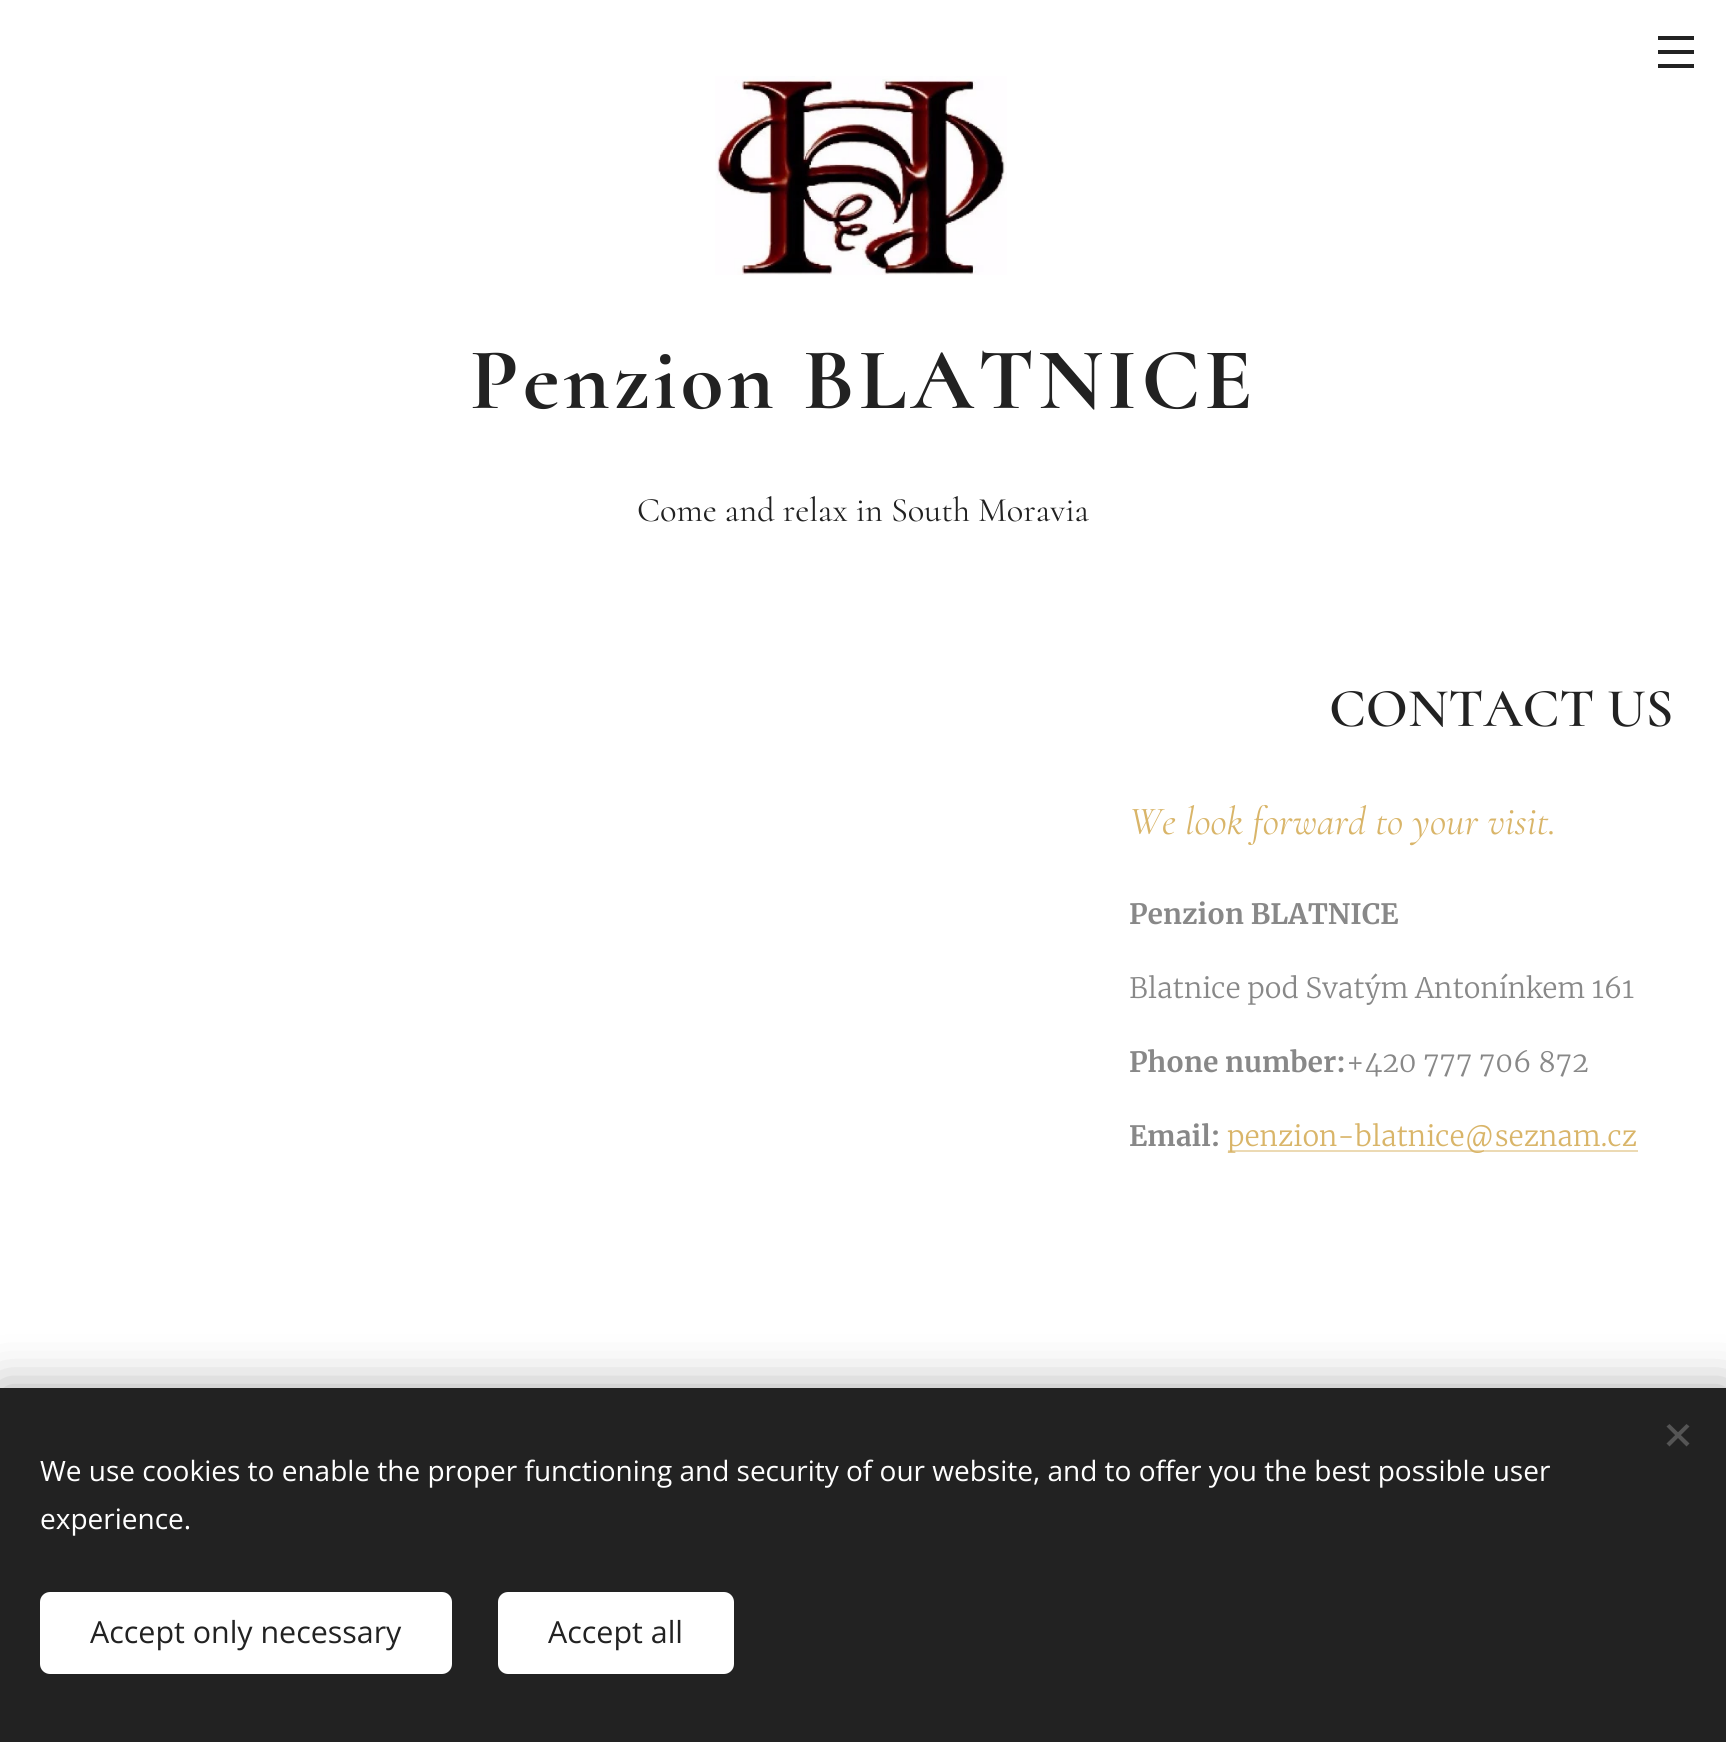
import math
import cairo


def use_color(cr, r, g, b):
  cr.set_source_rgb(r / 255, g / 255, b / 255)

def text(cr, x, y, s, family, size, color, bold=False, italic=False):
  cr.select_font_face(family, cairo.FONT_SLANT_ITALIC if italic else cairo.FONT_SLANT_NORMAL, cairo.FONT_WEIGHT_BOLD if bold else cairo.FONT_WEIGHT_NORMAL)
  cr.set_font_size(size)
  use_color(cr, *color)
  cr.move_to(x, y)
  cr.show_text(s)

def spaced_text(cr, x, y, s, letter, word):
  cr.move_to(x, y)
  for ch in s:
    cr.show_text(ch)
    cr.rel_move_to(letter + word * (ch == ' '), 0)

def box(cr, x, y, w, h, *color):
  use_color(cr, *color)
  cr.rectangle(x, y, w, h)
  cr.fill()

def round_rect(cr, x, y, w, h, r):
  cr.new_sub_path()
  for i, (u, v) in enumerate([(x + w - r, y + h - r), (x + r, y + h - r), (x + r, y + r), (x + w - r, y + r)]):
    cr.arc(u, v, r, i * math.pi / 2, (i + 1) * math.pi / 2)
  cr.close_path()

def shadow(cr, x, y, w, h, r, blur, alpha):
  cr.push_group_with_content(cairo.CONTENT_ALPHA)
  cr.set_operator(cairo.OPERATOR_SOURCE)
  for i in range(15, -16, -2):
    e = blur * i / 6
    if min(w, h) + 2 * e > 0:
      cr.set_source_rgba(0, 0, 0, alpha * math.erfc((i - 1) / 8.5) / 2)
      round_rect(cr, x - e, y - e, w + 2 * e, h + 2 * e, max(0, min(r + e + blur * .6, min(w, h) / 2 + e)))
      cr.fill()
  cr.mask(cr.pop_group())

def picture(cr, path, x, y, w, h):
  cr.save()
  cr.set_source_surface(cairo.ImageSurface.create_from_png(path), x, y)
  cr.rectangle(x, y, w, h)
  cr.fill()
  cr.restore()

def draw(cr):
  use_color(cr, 255, 255, 255)
  cr.paint()
  box(cr, 1658, 50, 36, 4, 34, 34, 34)
  box(cr, 1658, 36, 36, 4, 34, 34, 34)
  box(cr, 1658, 64, 36, 4, 34, 34, 34)
  picture(cr, "img_01.png", 715, 76, 292, 199)
  box(cr, 1228, 1150, 410, 2, 236, 218, 180)
  use_color(cr, 0, 0, 0)
  shadow(cr, 0, 1388, 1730, 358, 0, 25, 0.33)
  box(cr, 0, 1388, 1726, 354, 34, 34, 34)
  use_color(cr, 85, 85, 85)
  cr.new_path()
  cr.move_to(1666.5, 1443.5)
  cr.line_to(1686.5, 1424)
  cr.line_to(1689.5, 1426.5)
  cr.line_to(1669.5, 1446.5)
  cr.close_path()
  cr.fill()
  cr.new_path()
  cr.move_to(1669.5, 1424)
  cr.line_to(1689.5, 1443.5)
  cr.line_to(1686.5, 1446.5)
  cr.line_to(1666.5, 1426.5)
  cr.close_path()
  cr.fill()
  use_color(cr, 255, 255, 255)
  round_rect(cr, 40, 1592, 412, 82, 10)
  cr.fill()
  round_rect(cr, 498, 1592, 236, 82, 10)
  cr.fill()
  cr.select_font_face("Cormorant", cairo.FONT_SLANT_NORMAL, cairo.FONT_WEIGHT_BOLD)
  cr.set_font_size(88)
  use_color(cr, 34, 34, 34)
  spaced_text(cr, 470, 408, "Penzion BLATNICE", 4, 0)
  text(cr, 637, 521, "Come and relax in South Moravia", "Cormorant", 34.4, (34, 34, 34))
  text(cr, 1329, 726, "CONTACT", "Cormorant SemiBold", 55, (34, 34, 34))
  text(cr, 1607, 726, "US", "Cormorant SemiBold", 55, (34, 34, 34))
  text(cr, 1129, 834, "We look forward to your visit.", "Cormorant", 40, (217, 181, 105), italic=True)
  text(cr, 1129, 924, "Penzion BLATNICE", "Merriweather", 28, (136, 136, 136), bold=True)
  text(cr, 1129, 998, "Blatnice pod Svatým Antonínkem 161", "Merriweather Light", 28, (136, 136, 136))
  text(cr, 1129, 1072, "Phone number:", "Merriweather", 28, (136, 136, 136), bold=True)
  text(cr, 1346, 1072, "+420 777 706 872", "Merriweather Light", 28, (136, 136, 136))
  text(cr, 1129, 1146, "Email:", "Merriweather", 28, (136, 136, 136), bold=True)
  text(cr, 1227, 1146, "penzion-blatnice@seznam.cz", "Merriweather Light", 28, (217, 181, 105))
  text(cr, 40, 1481, "We use cookies to enable the proper functioning and security of our website, and to offer you the best possible user", "Open Sans", 28, (255, 255, 255))
  text(cr, 40, 1529, "experience.", "Open Sans", 28, (255, 255, 255))
  text(cr, 90, 1643, "Accept only necessary", "Open Sans", 30.4, (34, 34, 34))
  text(cr, 548, 1643, "Accept all", "Open Sans", 30.4, (34, 34, 34))


surface = cairo.ImageSurface(cairo.FORMAT_RGB24, 1726, 1742)
cr = cairo.Context(surface)
options = cairo.FontOptions()
options.set_hint_metrics(cairo.HINT_METRICS_OFF)
options.set_hint_style(cairo.HINT_STYLE_NONE)
cr.set_font_options(options)
cr.set_miter_limit(4)
draw(cr)
surface.write_to_png("out.png")
